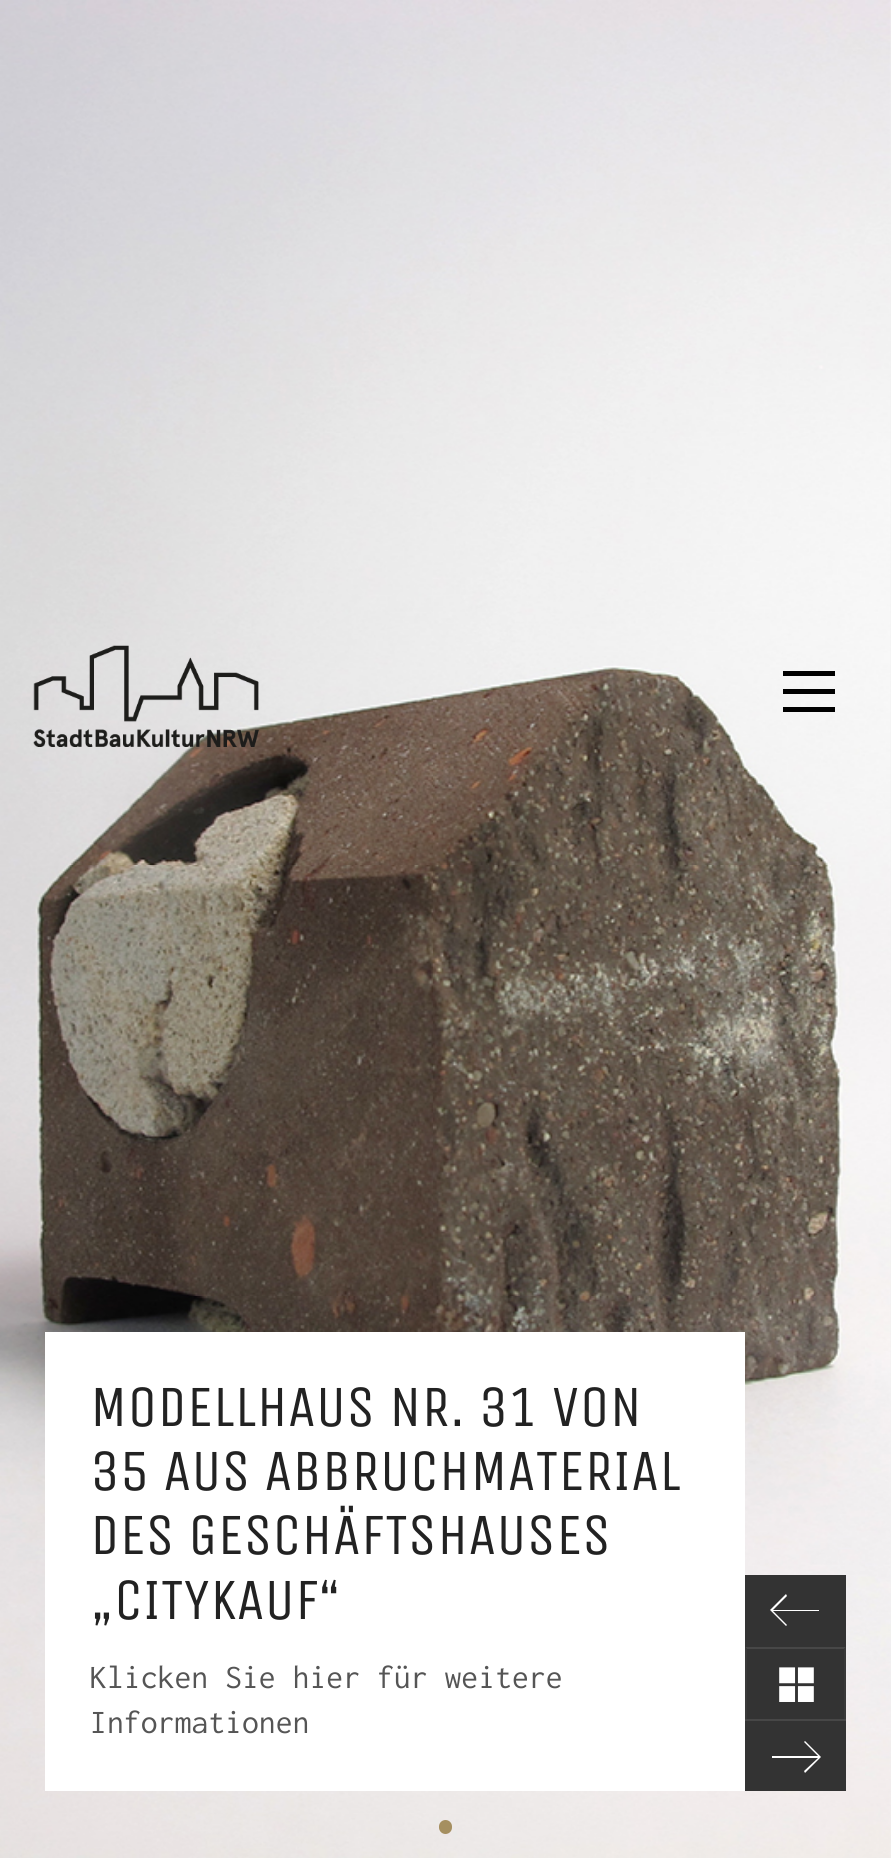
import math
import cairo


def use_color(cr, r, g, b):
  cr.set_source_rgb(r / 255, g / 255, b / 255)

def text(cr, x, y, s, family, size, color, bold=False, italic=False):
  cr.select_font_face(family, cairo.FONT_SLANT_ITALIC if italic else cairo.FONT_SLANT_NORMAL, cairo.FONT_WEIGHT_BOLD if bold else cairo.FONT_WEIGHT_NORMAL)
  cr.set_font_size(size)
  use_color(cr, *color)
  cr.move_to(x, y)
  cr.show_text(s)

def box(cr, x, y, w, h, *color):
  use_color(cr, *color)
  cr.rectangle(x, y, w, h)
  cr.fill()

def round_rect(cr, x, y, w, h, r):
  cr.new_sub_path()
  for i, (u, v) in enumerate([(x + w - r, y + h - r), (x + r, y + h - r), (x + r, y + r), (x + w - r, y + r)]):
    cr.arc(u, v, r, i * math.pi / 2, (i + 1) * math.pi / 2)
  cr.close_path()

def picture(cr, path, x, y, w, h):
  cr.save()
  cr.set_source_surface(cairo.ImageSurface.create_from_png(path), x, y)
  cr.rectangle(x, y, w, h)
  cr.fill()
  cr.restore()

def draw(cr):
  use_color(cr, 238, 238, 238)
  cr.paint()
  picture(cr, "img_01.png", 0, 0, 891, 1858)
  picture(cr, "img_02.png", 33, 645, 226, 102)
  box(cr, 783, 689, 52, 5, 0, 0, 0)
  box(cr, 783, 671, 52, 5, 0, 0, 0)
  box(cr, 783, 707, 52, 5, 0, 0, 0)
  box(cr, 45, 1332, 700, 459, 255, 255, 255)
  box(cr, 745, 1575, 101, 144, 51, 51, 51)
  use_color(cr, 255, 255, 255)
  cr.new_path()
  cr.move_to(786, 1594)
  cr.line_to(787, 1596)
  cr.line_to(773, 1610)
  cr.line_to(819, 1610)
  cr.line_to(819, 1611)
  cr.line_to(773, 1611)
  cr.line_to(787, 1625)
  cr.line_to(786, 1626)
  cr.line_to(770, 1610)
  cr.close_path()
  cr.fill()
  use_color(cr, 71, 71, 71)
  cr.new_path()
  cr.move_to(745, 1647)
  cr.line_to(846, 1647)
  cr.line_to(844, 1649)
  cr.line_to(747, 1649)
  cr.close_path()
  cr.fill()
  use_color(cr, 57, 57, 57)
  cr.new_path()
  cr.move_to(846, 1647)
  cr.line_to(846, 1719)
  cr.line_to(844, 1719)
  cr.line_to(844, 1649)
  cr.close_path()
  cr.fill()
  cr.new_path()
  cr.move_to(745, 1719)
  cr.line_to(745, 1647)
  cr.line_to(747, 1649)
  cr.line_to(747, 1719)
  cr.close_path()
  cr.fill()
  picture(cr, "img_03.png", 779, 1667, 35, 35)
  box(cr, 745, 1721, 101, 70, 51, 51, 51)
  box(cr, 745, 1719, 101, 2, 71, 71, 71)
  use_color(cr, 255, 255, 255)
  cr.new_path()
  cr.move_to(805, 1741)
  cr.line_to(804, 1742)
  cr.line_to(818, 1756)
  cr.line_to(772, 1756)
  cr.line_to(772, 1758)
  cr.line_to(818, 1758)
  cr.line_to(804, 1771)
  cr.line_to(805, 1773)
  cr.line_to(821, 1757)
  cr.close_path()
  cr.fill()
  use_color(cr, 165, 143, 96)
  round_rect(cr, 439, 1820, 13, 14, 6.5)
  cr.fill()
  text(cr, 90, 1426, "MODELLHAUS NR. 31 VON", "Unica One", 58.5, (34, 34, 34))
  text(cr, 90, 1490, "35 AUS ABBRUCHMATERIAL", "Unica One", 58.5, (34, 34, 34))
  text(cr, 90, 1554, "DES GESCHÄFTSHAUSES", "Unica One", 58.5, (34, 34, 34))
  text(cr, 90, 1619, "„CITYKAUF“", "Unica One", 58.5, (34, 34, 34))
  text(cr, 90, 1688, "Klicken Sie hier für weitere", "Inconsolata", 33.75, (85, 85, 85))
  text(cr, 90, 1733, "Informationen", "Inconsolata", 33.75, (85, 85, 85))


surface = cairo.ImageSurface(cairo.FORMAT_RGB24, 891, 1858)
cr = cairo.Context(surface)
options = cairo.FontOptions()
options.set_hint_metrics(cairo.HINT_METRICS_OFF)
options.set_hint_style(cairo.HINT_STYLE_NONE)
cr.set_font_options(options)
cr.set_miter_limit(4)
draw(cr)
surface.write_to_png("out.png")
